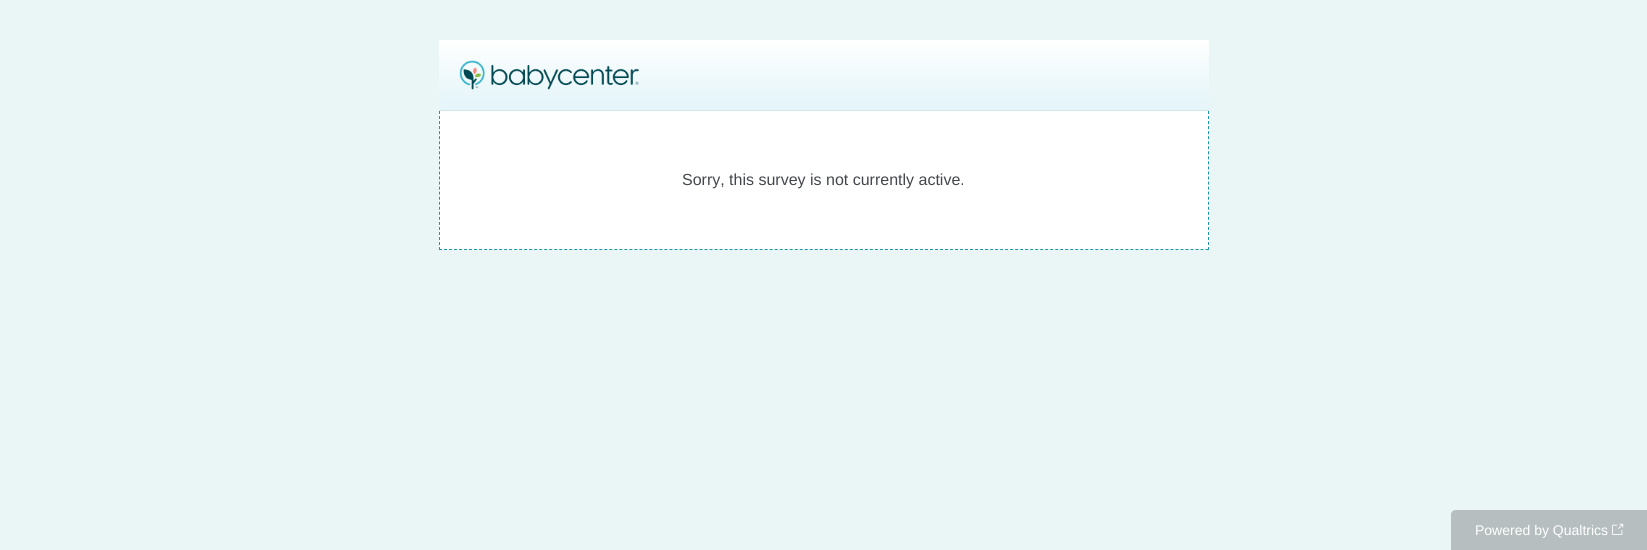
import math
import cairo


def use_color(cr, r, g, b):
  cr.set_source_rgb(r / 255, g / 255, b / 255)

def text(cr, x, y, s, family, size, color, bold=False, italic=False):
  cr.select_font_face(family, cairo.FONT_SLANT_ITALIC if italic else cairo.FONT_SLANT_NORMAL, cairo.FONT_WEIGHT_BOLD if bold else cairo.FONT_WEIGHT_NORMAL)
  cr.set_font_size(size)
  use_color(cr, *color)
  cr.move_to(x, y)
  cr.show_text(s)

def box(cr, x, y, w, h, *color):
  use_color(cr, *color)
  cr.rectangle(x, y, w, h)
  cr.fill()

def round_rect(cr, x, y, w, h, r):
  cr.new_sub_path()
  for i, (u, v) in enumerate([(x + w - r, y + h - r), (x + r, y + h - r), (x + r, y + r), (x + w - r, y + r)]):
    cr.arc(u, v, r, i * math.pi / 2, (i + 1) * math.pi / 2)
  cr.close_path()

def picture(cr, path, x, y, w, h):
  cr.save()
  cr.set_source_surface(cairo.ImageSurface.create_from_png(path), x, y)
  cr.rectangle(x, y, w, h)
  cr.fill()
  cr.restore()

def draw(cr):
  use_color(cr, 234, 245, 245)
  cr.paint()
  use_color(cr, 255, 255, 255)
  round_rect(cr, 439, 40, 770, 210, 4)
  cr.fill()
  gradient = cairo.LinearGradient(824, 40, 824, 110)
  gradient.add_color_stop_rgba(0, 1, 1, 1, 1)
  gradient.add_color_stop_rgba(0.9, 0.898, 0.961, 0.976, 1)
  cr.set_source(gradient)
  cr.rectangle(439, 40, 770, 70)
  cr.fill()
  box(cr, 439, 110, 770, 1, 211, 230, 231)
  picture(cr, "img_01.png", 459, 60, 180, 30)
  cr.new_path()
  cr.move_to(1208.5, 111)
  cr.line_to(1208.5, 250)
  use_color(cr, 30, 147, 170)
  cr.set_line_width(1)
  cr.set_dash([3, 2.04])
  cr.stroke()
  cr.new_path()
  cr.move_to(439, 249.5)
  cr.line_to(1209, 249.5)
  cr.set_dash([3, 2.01])
  cr.stroke()
  cr.new_path()
  cr.move_to(439.5, 111)
  cr.line_to(439.5, 250)
  cr.set_dash([3, 2.04])
  cr.stroke()
  use_color(cr, 182, 190, 192)
  cr.new_path()
  cr.move_to(1456, 510)
  cr.line_to(1647, 510)
  cr.line_to(1647, 550)
  cr.line_to(1451, 550)
  cr.line_to(1451, 515)
  cr.curve_to(1451, 512, 1453, 510, 1456, 510)
  cr.close_path()
  cr.fill()
  picture(cr, "img_02.png", 1612, 523, 12, 12)
  text(cr, 682, 185, "Sorry, this survey is not currently active.", "Liberation Sans", 16, (67, 70, 77))
  text(cr, 1475, 535, "Powered by Qualtrics", "Liberation Sans", 14, (255, 255, 255))


surface = cairo.ImageSurface(cairo.FORMAT_RGB24, 1647, 550)
cr = cairo.Context(surface)
options = cairo.FontOptions()
options.set_hint_metrics(cairo.HINT_METRICS_OFF)
options.set_hint_style(cairo.HINT_STYLE_NONE)
cr.set_font_options(options)
cr.set_miter_limit(4)
draw(cr)
surface.write_to_png("out.png")
